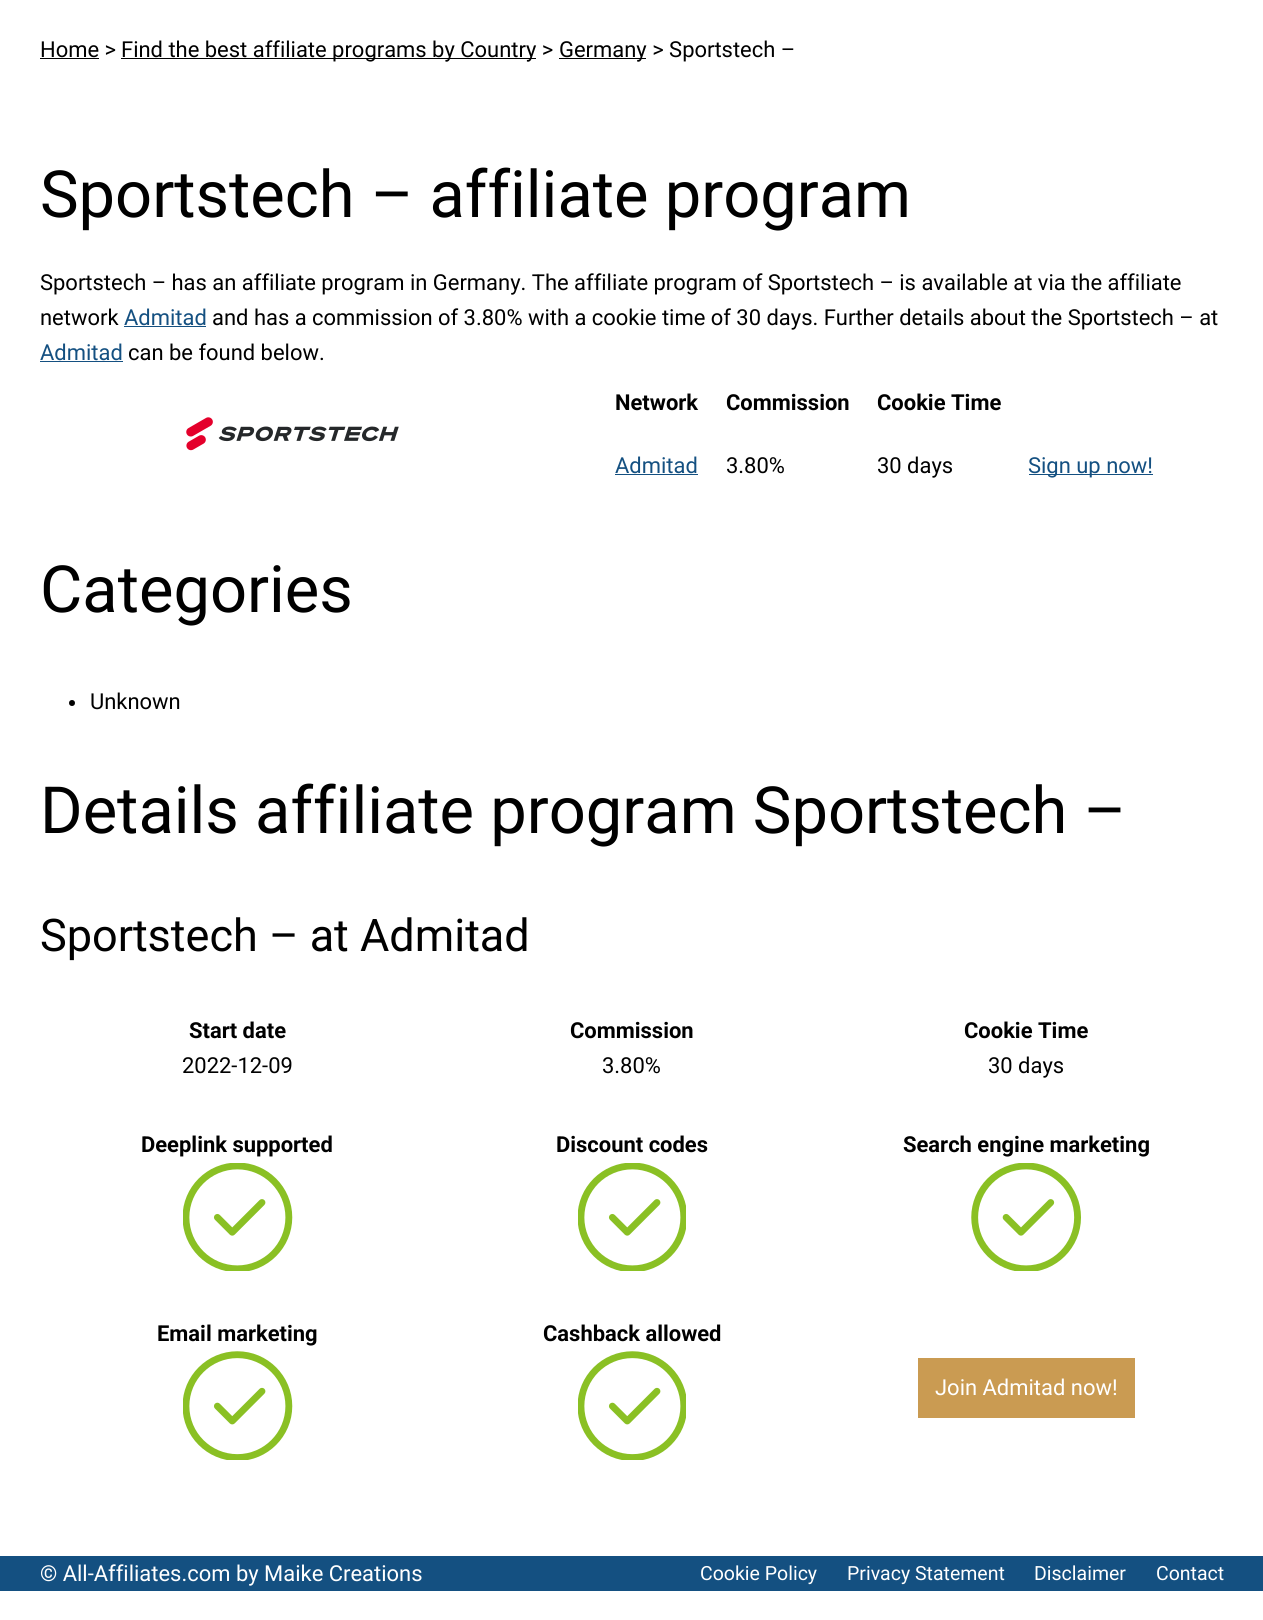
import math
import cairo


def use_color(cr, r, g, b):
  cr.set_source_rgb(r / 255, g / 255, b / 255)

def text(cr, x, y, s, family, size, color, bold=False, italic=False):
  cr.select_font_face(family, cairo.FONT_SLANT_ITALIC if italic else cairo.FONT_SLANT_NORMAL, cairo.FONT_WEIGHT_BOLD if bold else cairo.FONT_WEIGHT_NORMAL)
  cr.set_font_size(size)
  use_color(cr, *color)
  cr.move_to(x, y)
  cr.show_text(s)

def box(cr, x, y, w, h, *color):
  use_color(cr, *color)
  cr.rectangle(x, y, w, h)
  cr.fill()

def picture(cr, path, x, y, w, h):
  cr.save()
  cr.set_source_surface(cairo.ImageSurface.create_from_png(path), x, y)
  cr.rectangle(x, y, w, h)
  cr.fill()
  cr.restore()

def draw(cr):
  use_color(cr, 255, 255, 255)
  cr.paint()
  box(cr, 40, 58, 59, 1, 0, 0, 0)
  box(cr, 121, 58, 415, 1, 0, 0, 0)
  box(cr, 559, 58, 87, 1, 0, 0, 0)
  box(cr, 124, 326, 82, 1, 20, 80, 129)
  box(cr, 40, 361, 83, 1, 20, 80, 129)
  picture(cr, "img_01.png", 186, 417, 213, 34)
  box(cr, 615, 474, 83, 1, 20, 80, 129)
  box(cr, 1029, 474, 124, 1, 20, 80, 129)
  use_color(cr, 0, 0, 0)
  cr.arc(72, 703, 3, 0, 2 * math.pi)
  cr.fill()
  picture(cr, "img_02.png", 183, 1163, 110, 108)
  picture(cr, "img_03.png", 578, 1163, 108, 108)
  picture(cr, "img_04.png", 971, 1163, 110, 108)
  picture(cr, "img_05.png", 183, 1351, 110, 109)
  picture(cr, "img_06.png", 578, 1351, 108, 109)
  box(cr, 918, 1358, 217, 60, 202, 155, 82)
  box(cr, 0, 1556, 1263, 35, 20, 80, 129)
  text(cr, 40, 57, "Home >", "Roboto", 21.95, (0, 0, 0))
  text(cr, 121, 57, "Find the best affiliate programs by Country >", "Roboto", 21.95, (0, 0, 0))
  text(cr, 559, 57, "Germany > Sportstech –", "Roboto", 21.95, (0, 0, 0))
  text(cr, 40, 217, "Sportstech – affiliate program", "Roboto", 65, (0, 0, 0))
  text(cr, 40, 290, "Sportstech – has an affiliate program in Germany. The affiliate program of Sportstech – is available at via the affiliate", "Roboto", 21.95, (0, 0, 0))
  text(cr, 40, 325, "network", "Roboto", 21.95, (0, 0, 0))
  text(cr, 124, 325, "Admitad", "Roboto", 21.95, (20, 80, 129))
  text(cr, 212, 325, "and has a commission of 3.80% with a cookie time of 30 days. Further details about the Sportstech – at", "Roboto", 21.95, (0, 0, 0))
  text(cr, 40, 360, "Admitad", "Roboto", 21.95, (20, 80, 129))
  text(cr, 128, 360, "can be found below.", "Roboto", 21.95, (0, 0, 0))
  text(cr, 615, 410, "Network", "Roboto", 21.95, (0, 0, 0), bold=True)
  text(cr, 726, 410, "Commission", "Roboto", 21.95, (0, 0, 0), bold=True)
  text(cr, 877, 410, "Cookie Time", "Roboto", 21.95, (0, 0, 0), bold=True)
  text(cr, 615, 473, "Admitad", "Roboto", 21.95, (20, 80, 129))
  text(cr, 726, 473, "3.80%", "Roboto", 21.95, (0, 0, 0))
  text(cr, 877, 473, "30 days", "Roboto", 21.95, (0, 0, 0))
  text(cr, 1028, 473, "Sign up now!", "Roboto", 21.95, (20, 80, 129))
  text(cr, 40, 612, "Categories", "Roboto", 65, (0, 0, 0))
  text(cr, 90, 709, "Unknown", "Roboto", 21.95, (0, 0, 0))
  text(cr, 40, 833, "Details affiliate program Sportstech –", "Roboto", 65, (0, 0, 0))
  text(cr, 40, 951, "Sportstech – at Admitad", "Roboto", 45, (0, 0, 0))
  text(cr, 189, 1038, "Start date", "Roboto", 21.95, (0, 0, 0), bold=True)
  text(cr, 182, 1073, "2022-12-09", "Roboto", 21.95, (0, 0, 0))
  text(cr, 570, 1038, "Commission", "Roboto", 21.95, (0, 0, 0), bold=True)
  text(cr, 602, 1073, "3.80%", "Roboto", 21.95, (0, 0, 0))
  text(cr, 964, 1038, "Cookie Time", "Roboto", 21.95, (0, 0, 0), bold=True)
  text(cr, 988, 1073, "30 days", "Roboto", 21.95, (0, 0, 0))
  text(cr, 141, 1152, "Deeplink supported", "Roboto", 21.95, (0, 0, 0), bold=True)
  text(cr, 556, 1152, "Discount codes", "Roboto", 21.95, (0, 0, 0), bold=True)
  text(cr, 903, 1152, "Search engine marketing", "Roboto", 21.95, (0, 0, 0), bold=True)
  text(cr, 157, 1341, "Email marketing", "Roboto", 21.95, (0, 0, 0), bold=True)
  text(cr, 543, 1341, "Cashback allowed", "Roboto", 21.95, (0, 0, 0), bold=True)
  text(cr, 935, 1395, "Join Admitad now!", "Roboto", 21.95, (255, 255, 255))
  text(cr, 40, 1581, "© All-Affiliates.com by Maike Creations", "Roboto", 21.95, (255, 255, 255))
  text(cr, 700, 1580, "Cookie Policy", "Roboto", 19.5, (255, 255, 255))
  text(cr, 847, 1580, "Privacy Statement", "Roboto", 19.5, (255, 255, 255))
  text(cr, 1034, 1580, "Disclaimer", "Roboto", 19.5, (255, 255, 255))
  text(cr, 1156, 1580, "Contact", "Roboto", 19.5, (255, 255, 255))


surface = cairo.ImageSurface(cairo.FORMAT_RGB24, 1263, 1620)
cr = cairo.Context(surface)
options = cairo.FontOptions()
options.set_hint_metrics(cairo.HINT_METRICS_OFF)
options.set_hint_style(cairo.HINT_STYLE_NONE)
cr.set_font_options(options)
cr.set_miter_limit(4)
draw(cr)
surface.write_to_png("out.png")
